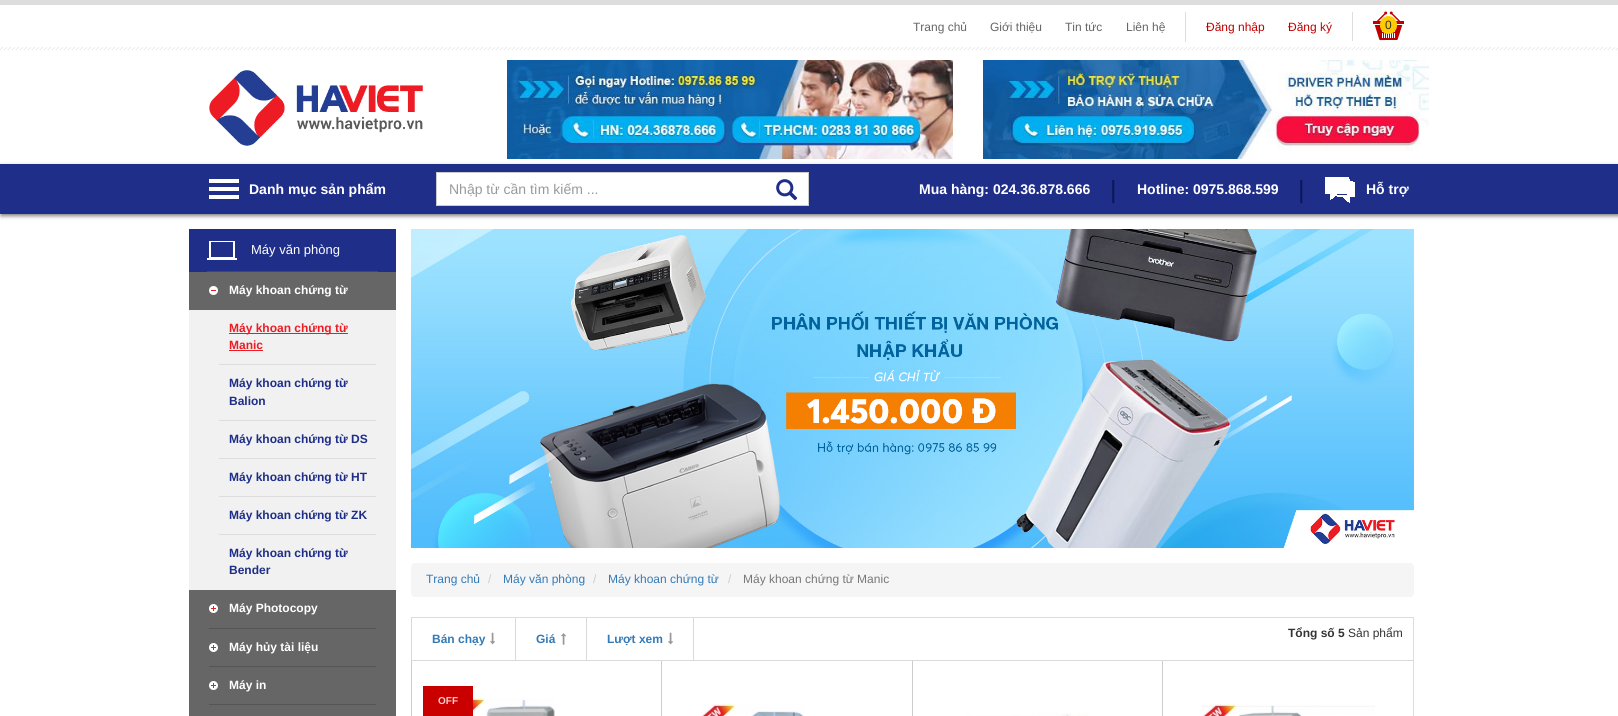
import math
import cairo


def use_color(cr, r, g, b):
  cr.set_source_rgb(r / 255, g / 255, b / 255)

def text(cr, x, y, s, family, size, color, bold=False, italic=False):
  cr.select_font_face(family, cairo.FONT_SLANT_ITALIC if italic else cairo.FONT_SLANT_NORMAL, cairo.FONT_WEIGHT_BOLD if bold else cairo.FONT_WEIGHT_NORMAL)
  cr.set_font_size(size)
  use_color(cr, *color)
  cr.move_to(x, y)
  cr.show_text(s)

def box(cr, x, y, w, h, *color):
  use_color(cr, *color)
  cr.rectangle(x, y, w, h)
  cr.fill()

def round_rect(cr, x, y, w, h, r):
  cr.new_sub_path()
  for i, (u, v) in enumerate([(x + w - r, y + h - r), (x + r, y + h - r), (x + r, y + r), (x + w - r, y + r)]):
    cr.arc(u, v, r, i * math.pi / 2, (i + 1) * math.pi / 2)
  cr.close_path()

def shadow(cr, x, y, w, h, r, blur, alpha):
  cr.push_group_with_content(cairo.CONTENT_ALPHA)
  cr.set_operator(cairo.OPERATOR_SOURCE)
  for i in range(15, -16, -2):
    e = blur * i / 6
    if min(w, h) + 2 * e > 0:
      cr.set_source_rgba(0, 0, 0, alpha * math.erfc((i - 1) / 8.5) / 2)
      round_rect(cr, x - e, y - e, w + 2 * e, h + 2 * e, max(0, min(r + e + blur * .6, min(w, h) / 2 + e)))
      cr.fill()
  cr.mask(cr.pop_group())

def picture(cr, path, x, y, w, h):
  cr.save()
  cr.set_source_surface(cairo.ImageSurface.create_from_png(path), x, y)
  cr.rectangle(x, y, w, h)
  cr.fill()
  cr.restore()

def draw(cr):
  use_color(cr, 255, 255, 255)
  cr.paint()
  picture(cr, "img_01.png", 0, 0, 1618, 50)
  box(cr, 1185, 12, 1, 30, 221, 221, 221)
  box(cr, 1352, 12, 1, 29, 221, 221, 221)
  picture(cr, "img_02.png", 1373, 11, 31, 30)
  use_color(cr, 0, 0, 0)
  shadow(cr, 1379, 17, 17, 18, 8.5, 0.5, 0.1)
  use_color(cr, 255, 204, 0)
  round_rect(cr, 1380, 16, 17, 18, 8.5)
  cr.fill()
  picture(cr, "img_03.png", 209, 70, 214, 76)
  picture(cr, "img_04.png", 507, 60, 446, 99)
  picture(cr, "img_05.png", 983, 60, 446, 99)
  use_color(cr, 0, 0, 0)
  shadow(cr, 1, 166, 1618, 50, 0, 2, 0.5)
  box(cr, 0, 164, 1618, 50, 31, 46, 137)
  picture(cr, "img_06.png", 209, 179, 30, 20)
  box(cr, 437, 173, 371, 32, 255, 255, 255)
  box(cr, 436, 172, 373, 1, 204, 204, 204)
  box(cr, 808, 172, 1, 34, 204, 204, 204)
  box(cr, 436, 205, 373, 1, 204, 204, 204)
  picture(cr, "img_07.png", 776, 179, 22, 22)
  box(cr, 436, 172, 1, 34, 204, 204, 204)
  picture(cr, "img_08.png", 1325, 177, 30, 26)
  box(cr, 189, 229, 207, 43, 31, 46, 137)
  picture(cr, "img_09.png", 207, 241, 30, 19)
  box(cr, 207, 271, 171, 1, 58, 70, 136)
  box(cr, 189, 272, 207, 444, 102, 102, 102)
  picture(cr, "img_10.png", 209, 286, 9, 9)
  box(cr, 189, 310, 207, 280, 241, 241, 241)
  box(cr, 219, 364, 157, 1, 221, 221, 221)
  box(cr, 229, 333, 119, 1, 237, 28, 36)
  box(cr, 229, 350, 34, 1, 237, 28, 36)
  box(cr, 219, 420, 157, 1, 221, 221, 221)
  box(cr, 219, 458, 157, 1, 221, 221, 221)
  box(cr, 219, 496, 157, 1, 221, 221, 221)
  box(cr, 219, 534, 157, 1, 221, 221, 221)
  picture(cr, "img_11.png", 209, 604, 9, 9)
  box(cr, 209, 628, 167, 1, 85, 85, 85)
  picture(cr, "img_11.png", 209, 643, 9, 9)
  box(cr, 209, 666, 167, 1, 85, 85, 85)
  picture(cr, "img_11.png", 209, 681, 9, 9)
  box(cr, 209, 704, 167, 1, 85, 85, 85)
  picture(cr, "img_12.png", 411, 229, 1003, 319)
  use_color(cr, 245, 245, 245)
  round_rect(cr, 411, 563, 1003, 34, 4)
  cr.fill()
  box(cr, 411, 617, 1003, 1, 221, 221, 221)
  box(cr, 1413, 617, 1, 99, 221, 221, 221)
  box(cr, 411, 660, 1002, 1, 217, 217, 217)
  box(cr, 411, 618, 1, 43, 217, 217, 217)
  box(cr, 515, 618, 1, 42, 217, 217, 217)
  picture(cr, "img_13.png", 490, 632, 5, 13)
  box(cr, 586, 618, 1, 42, 217, 217, 217)
  picture(cr, "img_14.png", 561, 633, 5, 12)
  box(cr, 693, 618, 1, 42, 217, 217, 217)
  picture(cr, "img_13.png", 668, 632, 5, 13)
  box(cr, 411, 661, 1, 55, 204, 204, 204)
  box(cr, 423, 686, 50, 30, 202, 0, 0)
  picture(cr, "img_15.png", 473, 698, 82, 18)
  box(cr, 661, 661, 1, 55, 204, 204, 204)
  picture(cr, "img_16.png", 701, 704, 103, 12)
  box(cr, 912, 661, 1, 55, 204, 204, 204)
  picture(cr, "img_17.png", 967, 713, 122, 3)
  box(cr, 1162, 661, 1, 55, 204, 204, 204)
  picture(cr, "img_18.png", 1201, 704, 174, 12)
  text(cr, 913, 31, "Trang chủ", "Liberation Sans", 12, (102, 102, 102))
  text(cr, 990, 31, "Giới thiệu", "Liberation Sans", 12, (102, 102, 102))
  text(cr, 1065, 31, "Tin tức", "Liberation Sans", 12, (102, 102, 102))
  text(cr, 1126, 31, "Liên hệ", "Liberation Sans", 12, (102, 102, 102))
  text(cr, 1206, 31, "Đăng nhập", "Liberation Sans", 12, (192, 0, 0))
  text(cr, 1288, 31, "Đăng ký", "Liberation Sans", 12, (192, 0, 0))
  text(cr, 1385, 29, "0", "Liberation Sans", 12, (51, 51, 51))
  text(cr, 249, 194, "Danh mục sản phẩm", "Liberation Sans", 14, (255, 255, 255), bold=True)
  text(cr, 449, 194, "Nhập từ cần tìm kiếm ...", "Liberation Sans", 14, (153, 153, 153))
  text(cr, 919, 194, "Mua hàng: 024.36.878.666", "Liberation Sans", 14, (255, 255, 255), bold=True)
  text(cr, 1110, 198, "|", "Liberation Sans", 25, (12, 23, 91))
  text(cr, 1137, 194, "Hotline: 0975.868.599", "Liberation Sans", 14, (255, 255, 255), bold=True)
  text(cr, 1298, 198, "|", "Liberation Sans", 25, (12, 23, 91))
  text(cr, 1366, 194, "Hỗ trợ", "Liberation Sans", 14, (255, 255, 255), bold=True)
  text(cr, 251, 254, "Máy văn phòng", "Liberation Sans", 13, (255, 255, 255))
  text(cr, 229, 294, "Máy khoan chứng từ", "Liberation Sans", 12, (255, 255, 255), bold=True)
  text(cr, 229, 332, "Máy khoan chứng từ", "Liberation Sans", 12, (237, 28, 36), bold=True)
  text(cr, 229, 349, "Manic", "Liberation Sans", 12, (237, 28, 36), bold=True)
  text(cr, 229, 387, "Máy khoan chứng từ", "Liberation Sans", 12, (30, 46, 136), bold=True)
  text(cr, 229, 405, "Balion", "Liberation Sans", 12, (30, 46, 136), bold=True)
  text(cr, 229, 443, "Máy khoan chứng từ DS", "Liberation Sans", 12, (30, 46, 136), bold=True)
  text(cr, 229, 481, "Máy khoan chứng từ HT", "Liberation Sans", 12, (30, 46, 136), bold=True)
  text(cr, 229, 519, "Máy khoan chứng từ ZK", "Liberation Sans", 12, (30, 46, 136), bold=True)
  text(cr, 229, 557, "Máy khoan chứng từ", "Liberation Sans", 12, (30, 46, 136), bold=True)
  text(cr, 229, 574, "Bender", "Liberation Sans", 12, (30, 46, 136), bold=True)
  text(cr, 229, 612, "Máy Photocopy", "Liberation Sans", 12, (255, 255, 255), bold=True)
  text(cr, 229, 651, "Máy hủy tài liệu", "Liberation Sans", 12, (255, 255, 255), bold=True)
  text(cr, 229, 689, "Máy in", "Liberation Sans", 12, (255, 255, 255), bold=True)
  text(cr, 426, 583, "Trang chủ", "Liberation Sans", 12, (51, 122, 183))
  text(cr, 488, 583, "/", "Liberation Sans", 12, (204, 204, 204))
  text(cr, 503, 583, "Máy văn phòng", "Liberation Sans", 12, (51, 122, 183))
  text(cr, 593, 583, "/", "Liberation Sans", 12, (204, 204, 204))
  text(cr, 608, 583, "Máy khoan chứng từ", "Liberation Sans", 12, (51, 122, 183))
  text(cr, 728, 583, "/", "Liberation Sans", 12, (204, 204, 204))
  text(cr, 743, 583, "Máy khoan chứng từ Manic", "Liberation Sans", 12, (119, 119, 119))
  text(cr, 432, 643, "Bán chạy", "Liberation Sans", 12, (51, 122, 183), bold=True)
  text(cr, 536, 643, "Giá", "Liberation Sans", 12, (51, 122, 183), bold=True)
  text(cr, 607, 643, "Lượt xem", "Liberation Sans", 12, (51, 122, 183), bold=True)
  text(cr, 1288, 637, "Tổng số 5", "Liberation Sans", 12, (51, 51, 51), bold=True)
  text(cr, 1348, 637, "Sản phẩm", "Liberation Sans", 12, (51, 51, 51))
  text(cr, 438, 704, "OFF", "Liberation Sans", 10, (255, 205, 205), bold=True)


surface = cairo.ImageSurface(cairo.FORMAT_RGB24, 1618, 716)
cr = cairo.Context(surface)
options = cairo.FontOptions()
options.set_hint_metrics(cairo.HINT_METRICS_OFF)
options.set_hint_style(cairo.HINT_STYLE_NONE)
cr.set_font_options(options)
cr.set_miter_limit(4)
draw(cr)
surface.write_to_png("out.png")
